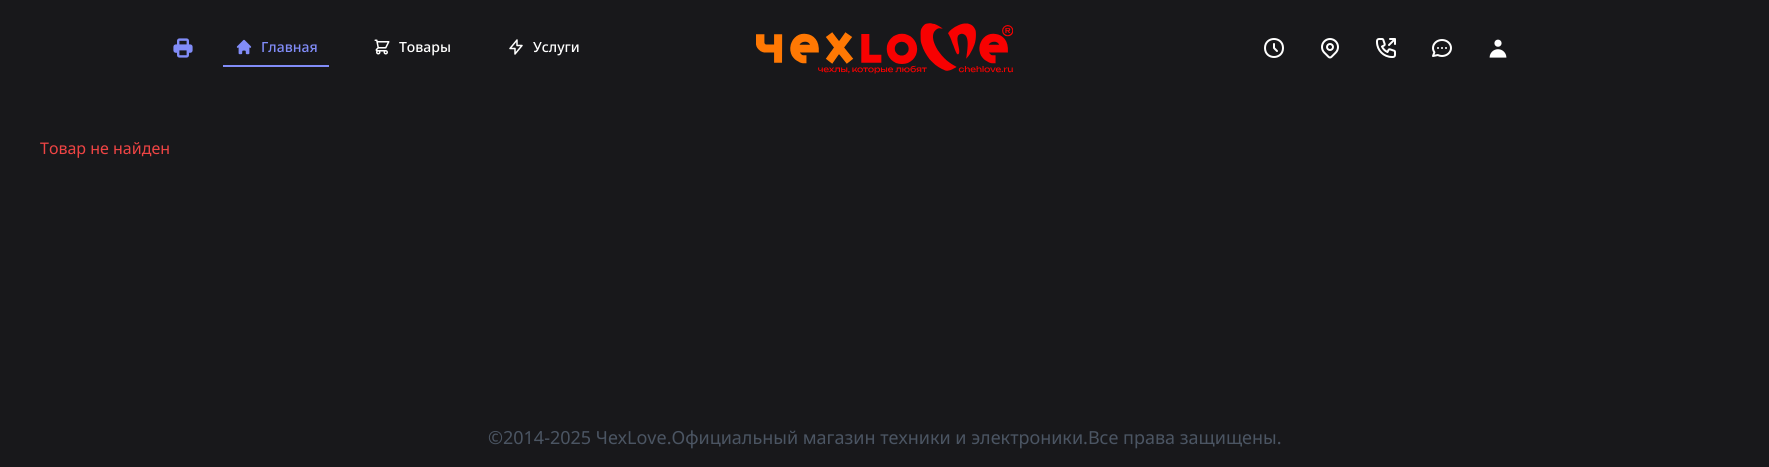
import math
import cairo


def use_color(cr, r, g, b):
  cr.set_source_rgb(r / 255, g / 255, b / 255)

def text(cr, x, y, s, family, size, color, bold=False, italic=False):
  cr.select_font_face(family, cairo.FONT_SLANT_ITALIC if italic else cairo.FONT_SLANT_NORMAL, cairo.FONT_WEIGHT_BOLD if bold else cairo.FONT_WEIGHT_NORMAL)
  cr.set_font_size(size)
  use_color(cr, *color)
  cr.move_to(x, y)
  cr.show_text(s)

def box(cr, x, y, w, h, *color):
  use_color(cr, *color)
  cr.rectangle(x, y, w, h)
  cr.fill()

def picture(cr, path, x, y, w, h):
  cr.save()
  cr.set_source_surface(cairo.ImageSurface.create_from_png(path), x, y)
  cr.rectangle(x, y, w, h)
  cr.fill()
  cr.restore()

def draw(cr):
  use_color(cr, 24, 24, 27)
  cr.paint()
  picture(cr, "img_01.png", 173, 38, 20, 20)
  box(cr, 223, 65, 106, 2, 129, 140, 248)
  picture(cr, "img_02.png", 236, 39, 16, 16)
  picture(cr, "img_03.png", 374, 39, 16, 16)
  cr.new_path()
  cr.move_to(517, 45.5)
  cr.line_to(517, 40)
  cr.line_to(510, 48.5)
  cr.line_to(515, 48.5)
  cr.line_to(515, 54)
  cr.line_to(522, 45.5)
  cr.close_path()
  use_color(cr, 255, 255, 255)
  cr.set_line_width(1.5)
  cr.set_line_cap(cairo.LINE_CAP_ROUND)
  cr.set_line_join(cairo.LINE_JOIN_ROUND)
  cr.stroke()
  picture(cr, "img_04.png", 756, 23, 257, 51)
  cr.new_path()
  cr.move_to(1274, 44)
  cr.line_to(1274, 48)
  cr.line_to(1277, 51)
  cr.move_to(1283, 48)
  cr.curve_to(1283, 60, 1265, 60, 1265, 48)
  cr.curve_to(1265, 36, 1283, 36, 1283, 48)
  cr.close_path()
  cr.set_line_width(2)
  cr.stroke()
  picture(cr, "img_05.png", 1321, 38, 18, 21)
  picture(cr, "img_06.png", 1376, 38, 20, 20)
  picture(cr, "img_07.png", 1432, 39, 20, 18)
  picture(cr, "img_08.png", 1489, 39, 18, 19)
  text(cr, 261, 52, "Главная", "Noto Sans Medium", 14, (129, 140, 248))
  text(cr, 399, 52, "Товары", "Noto Sans Medium", 14, (255, 255, 255))
  text(cr, 533, 52, "Услуги", "Noto Sans Medium", 14, (255, 255, 255))
  text(cr, 40, 154, "Товар не найден", "Noto Sans", 16, (239, 68, 68))
  text(cr, 488, 444, "©2014-2025 ЧехLove.Официальный магазин техники и электроники.Все права защищены.", "Noto Sans", 18, (75, 85, 99))


surface = cairo.ImageSurface(cairo.FORMAT_RGB24, 1769, 467)
cr = cairo.Context(surface)
options = cairo.FontOptions()
options.set_hint_metrics(cairo.HINT_METRICS_OFF)
options.set_hint_style(cairo.HINT_STYLE_NONE)
cr.set_font_options(options)
cr.set_miter_limit(4)
draw(cr)
surface.write_to_png("out.png")
